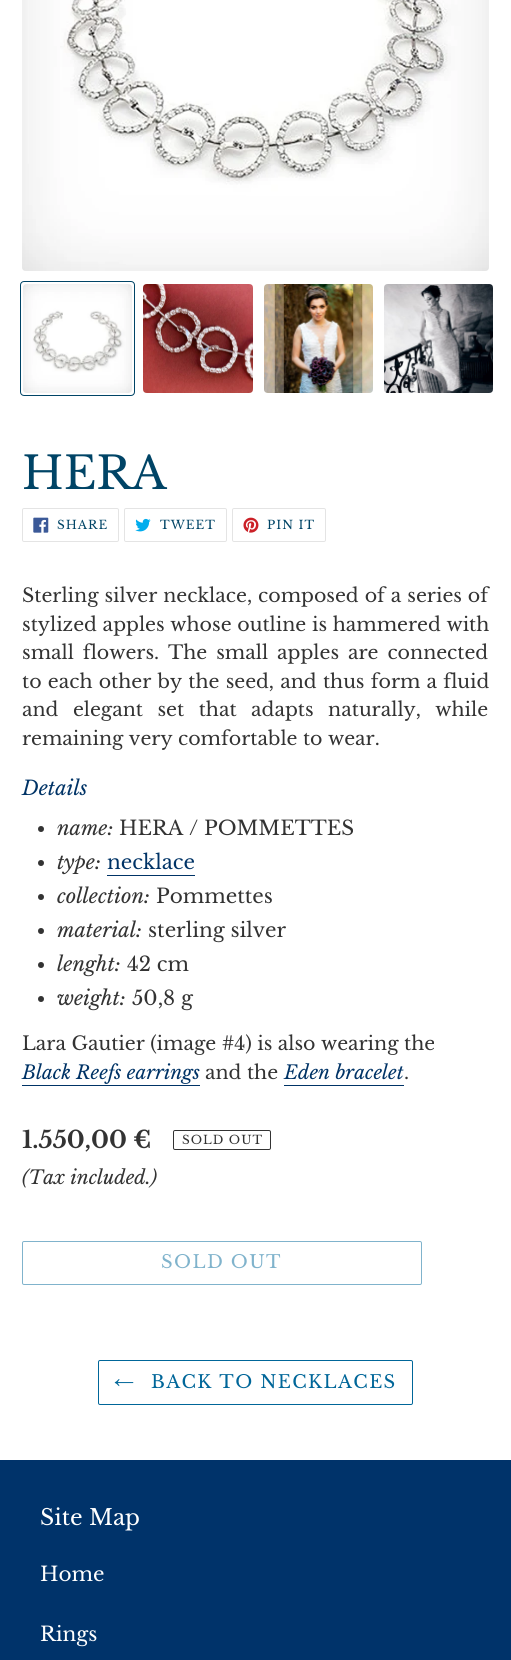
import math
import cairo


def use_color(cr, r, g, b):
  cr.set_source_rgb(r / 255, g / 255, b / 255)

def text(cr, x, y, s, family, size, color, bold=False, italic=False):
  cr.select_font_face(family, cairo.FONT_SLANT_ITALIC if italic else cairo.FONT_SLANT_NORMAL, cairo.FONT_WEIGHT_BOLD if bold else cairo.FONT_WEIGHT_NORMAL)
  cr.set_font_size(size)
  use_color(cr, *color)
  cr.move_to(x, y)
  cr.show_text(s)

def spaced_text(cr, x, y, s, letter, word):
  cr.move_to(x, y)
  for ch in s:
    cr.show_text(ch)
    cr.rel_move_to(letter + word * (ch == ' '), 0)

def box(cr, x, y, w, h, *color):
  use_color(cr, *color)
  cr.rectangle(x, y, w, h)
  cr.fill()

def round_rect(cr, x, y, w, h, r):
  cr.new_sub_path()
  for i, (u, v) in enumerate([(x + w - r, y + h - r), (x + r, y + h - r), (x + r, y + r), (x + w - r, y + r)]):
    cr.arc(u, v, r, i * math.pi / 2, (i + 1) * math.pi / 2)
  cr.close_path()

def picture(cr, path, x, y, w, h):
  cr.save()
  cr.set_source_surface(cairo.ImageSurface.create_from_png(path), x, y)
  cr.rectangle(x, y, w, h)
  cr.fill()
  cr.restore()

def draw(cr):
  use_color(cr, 255, 255, 255)
  cr.paint()
  picture(cr, "img_01.png", 22, 0, 467, 271)
  round_rect(cr, 20.5, 281.5, 114, 114, 3.5)
  use_color(cr, 0, 68, 102)
  cr.set_line_width(1)
  cr.stroke()
  picture(cr, "img_02.png", 23, 284, 109, 109)
  picture(cr, "img_03.png", 143, 284, 110, 109)
  picture(cr, "img_04.png", 264, 284, 109, 109)
  picture(cr, "img_05.png", 384, 284, 109, 109)
  round_rect(cr, 22.5, 508.5, 96, 33, 1.5)
  use_color(cr, 228, 228, 228)
  cr.stroke()
  picture(cr, "img_06.png", 33, 517, 16, 16)
  round_rect(cr, 124.5, 508.5, 102, 33, 1.5)
  cr.stroke()
  picture(cr, "img_07.png", 135, 518, 16, 14)
  round_rect(cr, 232.5, 508.5, 93, 33, 1.5)
  cr.stroke()
  picture(cr, "img_08.png", 243, 517, 16, 16)
  use_color(cr, 51, 51, 51)
  cr.arc(41, 829, 3, 0, 2 * math.pi)
  cr.fill()
  cr.arc(41, 863, 3, 0, 2 * math.pi)
  cr.fill()
  box(cr, 107, 875, 88, 1, 0, 51, 102)
  use_color(cr, 51, 51, 51)
  cr.arc(41, 897, 3, 0, 2 * math.pi)
  cr.fill()
  cr.arc(41, 931, 3, 0, 2 * math.pi)
  cr.fill()
  cr.arc(41, 965, 3, 0, 2 * math.pi)
  cr.fill()
  cr.arc(41, 999, 3, 0, 2 * math.pi)
  cr.fill()
  box(cr, 22, 1085, 178, 1, 0, 51, 102)
  box(cr, 284, 1085, 120, 1, 0, 51, 102)
  round_rect(cr, 173.5, 1130.5, 97, 19, 1.5)
  use_color(cr, 51, 51, 51)
  cr.stroke()
  round_rect(cr, 22.5, 1241.5, 399, 43, 1.5)
  use_color(cr, 128, 179, 204)
  cr.stroke()
  round_rect(cr, 98.5, 1360.5, 314, 44, 1.5)
  use_color(cr, 0, 102, 153)
  cr.stroke()
  picture(cr, "img_09.png", 114, 1379, 20, 8)
  box(cr, 0, 1460, 511, 200, 0, 51, 106)
  text(cr, 22, 489, "HERA", "Libre Baskerville", 45, (0, 68, 102))
  cr.set_font_size(12)
  spaced_text(cr, 57, 529, "SHARE", 1, 0)
  spaced_text(cr, 160, 529, "TWEET", 1, 0)
  spaced_text(cr, 267, 529, "PIN IT", 1, 0)
  cr.set_font_size(19)
  use_color(cr, 51, 51, 51)
  spaced_text(cr, 22, 602, "Sterling silver necklace, composed of a series of", 0, 0.5)
  spaced_text(cr, 22, 631, "stylized apples whose outline is hammered with", 0, 0.25)
  spaced_text(cr, 22, 659, "small flowers. The small apples are connected", 0, 3.5)
  spaced_text(cr, 22, 688, "to each other by the seed, and thus form a fluid", 0, 0.75)
  spaced_text(cr, 22, 716, "and elegant set that adapts naturally, while", 0, 9)
  text(cr, 22, 745, "remaining very comfortable to wear.", "Libre Baskerville", 19, (51, 51, 51))
  text(cr, 22, 795, "Details", "Libre Baskerville", 20, (0, 51, 102), italic=True)
  text(cr, 57, 835, "name:", "Libre Baskerville", 20, (51, 51, 51), italic=True)
  text(cr, 119, 835, "HERA / POMMETTES", "Libre Baskerville", 20, (51, 51, 51))
  text(cr, 57, 869, "type:", "Libre Baskerville", 20, (51, 51, 51), italic=True)
  text(cr, 107, 869, "necklace", "Libre Baskerville", 20, (0, 51, 102))
  text(cr, 57, 903, "collection:", "Libre Baskerville", 20, (51, 51, 51), italic=True)
  text(cr, 156, 903, "Pommettes", "Libre Baskerville", 20, (51, 51, 51))
  text(cr, 57, 937, "material:", "Libre Baskerville", 20, (51, 51, 51), italic=True)
  text(cr, 148, 937, "sterling silver", "Libre Baskerville", 20, (51, 51, 51))
  text(cr, 57, 971, "lenght:", "Libre Baskerville", 20, (51, 51, 51), italic=True)
  text(cr, 127, 971, "42 cm", "Libre Baskerville", 20, (51, 51, 51))
  text(cr, 57, 1005, "weight:", "Libre Baskerville", 20, (51, 51, 51), italic=True)
  text(cr, 132, 1005, "50,8 g", "Libre Baskerville", 20, (51, 51, 51))
  text(cr, 22, 1050, "Lara Gautier (image #4) is also wearing the", "Libre Baskerville", 19, (51, 51, 51))
  text(cr, 22, 1079, "Black Reefs earrings", "Libre Baskerville", 19, (0, 51, 102), italic=True)
  text(cr, 205, 1079, "and the", "Libre Baskerville", 19, (51, 51, 51))
  text(cr, 284, 1079, "Eden bracelet", "Libre Baskerville", 19, (0, 51, 102), italic=True)
  text(cr, 404, 1079, ".", "Libre Baskerville", 19, (51, 51, 51))
  text(cr, 22, 1148, "1.550,00 €", "Libre Baskerville", 23.75, (51, 51, 51), bold=True)
  cr.select_font_face("Libre Baskerville")
  cr.set_font_size(12)
  spaced_text(cr, 182, 1144, "SOLD OUT", 1, 0)
  text(cr, 22, 1184, "(Tax included.)", "Libre Baskerville", 19, (51, 51, 51), italic=True)
  cr.select_font_face("Libre Baskerville")
  cr.set_font_size(18)
  use_color(cr, 128, 179, 204)
  spaced_text(cr, 161, 1268, "SOLD OUT", 1.4, 0)
  use_color(cr, 0, 102, 153)
  spaced_text(cr, 151, 1388, "BACK TO NECKLACES", 1.4, 0)
  text(cr, 40, 1525, "Site Map", "Libre Baskerville", 22, (255, 255, 255))
  text(cr, 40, 1581, "Home", "Libre Baskerville", 20, (255, 255, 255))
  text(cr, 40, 1641, "Rings", "Libre Baskerville", 20, (255, 255, 255))


surface = cairo.ImageSurface(cairo.FORMAT_RGB24, 511, 1660)
cr = cairo.Context(surface)
options = cairo.FontOptions()
options.set_hint_metrics(cairo.HINT_METRICS_OFF)
options.set_hint_style(cairo.HINT_STYLE_NONE)
cr.set_font_options(options)
cr.set_miter_limit(4)
draw(cr)
surface.write_to_png("out.png")
